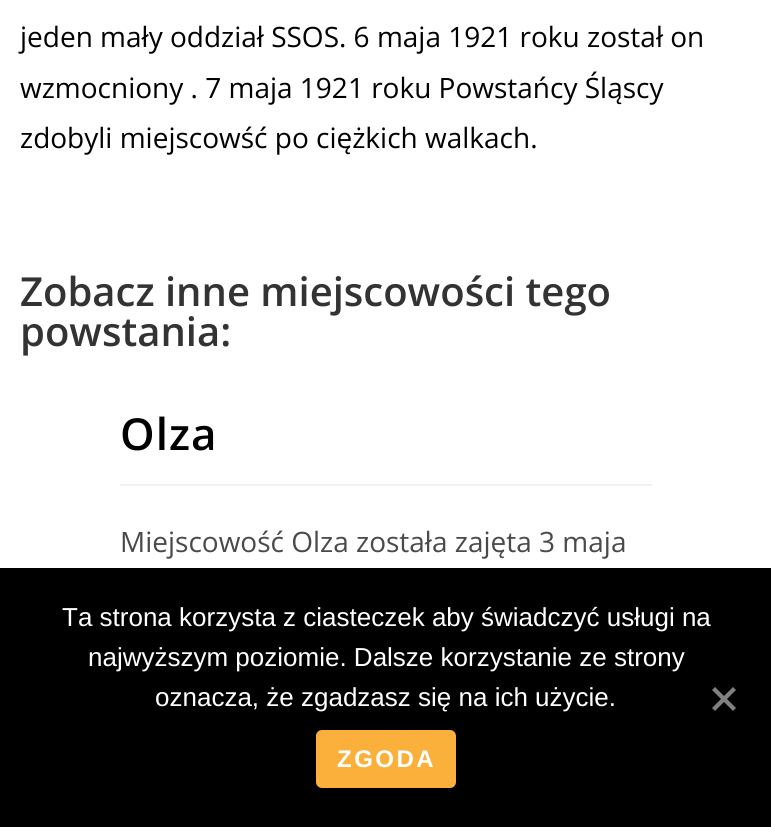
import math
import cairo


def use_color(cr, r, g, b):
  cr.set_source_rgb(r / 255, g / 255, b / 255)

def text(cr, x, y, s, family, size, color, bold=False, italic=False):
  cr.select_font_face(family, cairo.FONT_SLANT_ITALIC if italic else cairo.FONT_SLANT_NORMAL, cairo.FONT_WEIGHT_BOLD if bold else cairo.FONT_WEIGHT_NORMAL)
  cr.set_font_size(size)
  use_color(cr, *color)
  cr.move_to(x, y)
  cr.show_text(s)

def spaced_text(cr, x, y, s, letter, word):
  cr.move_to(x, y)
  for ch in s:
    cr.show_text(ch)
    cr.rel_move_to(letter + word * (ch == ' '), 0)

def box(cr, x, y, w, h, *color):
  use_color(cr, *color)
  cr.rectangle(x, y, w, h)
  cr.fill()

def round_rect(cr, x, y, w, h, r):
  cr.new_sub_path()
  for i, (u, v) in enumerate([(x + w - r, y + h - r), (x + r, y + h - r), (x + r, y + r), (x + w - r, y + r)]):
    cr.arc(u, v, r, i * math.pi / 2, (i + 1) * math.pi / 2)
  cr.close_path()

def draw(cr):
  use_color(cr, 255, 255, 255)
  cr.paint()
  box(cr, 120, 484, 532, 2, 241, 241, 241)
  box(cr, 0, 568, 771, 259, 0, 0, 0)
  use_color(cr, 128, 128, 128)
  cr.new_path()
  cr.move_to(733, 687)
  cr.line_to(736, 690)
  cr.line_to(715, 711)
  cr.line_to(712, 708)
  cr.close_path()
  cr.fill()
  cr.new_path()
  cr.move_to(712, 690)
  cr.line_to(715, 687)
  cr.line_to(736, 708)
  cr.line_to(733, 711)
  cr.close_path()
  cr.fill()
  use_color(cr, 251, 176, 59)
  round_rect(cr, 316, 730, 140, 58, 6)
  cr.fill()
  text(cr, 20, 47, "jeden mały oddział SSOS. 6 maja 1921 roku został on", "Open Sans", 28, (0, 0, 0))
  text(cr, 20, 98, "wzmocniony . 7 maja 1921 roku Powstańcy Śląscy", "Open Sans", 28, (0, 0, 0))
  text(cr, 20, 148, "zdobyli miejscowść po ciężkich walkach.", "Open Sans", 28, (0, 0, 0))
  text(cr, 20, 306, "Zobacz inne miejscowości tego", "Open Sans SemiBold", 40, (51, 51, 51))
  text(cr, 20, 346, "powstania:", "Open Sans SemiBold", 40, (51, 51, 51))
  cr.set_font_size(44)
  use_color(cr, 0, 0, 0)
  spaced_text(cr, 120, 450, "Olza", 1, 0)
  text(cr, 120, 552, "Miejscowość Olza została zajęta 3 maja", "Open Sans", 28, (74, 74, 74))
  text(cr, 62, 626, "Ta strona korzysta z ciasteczek aby świadczyć usługi na", "Liberation Sans", 26, (255, 255, 255))
  text(cr, 88, 666, "najwyższym poziomie. Dalsze korzystanie ze strony", "Liberation Sans", 26, (255, 255, 255))
  text(cr, 155, 706, "oznacza, że zgadzasz się na ich użycie.", "Liberation Sans", 26, (255, 255, 255))
  cr.select_font_face("Liberation Sans", cairo.FONT_SLANT_NORMAL, cairo.FONT_WEIGHT_BOLD)
  cr.set_font_size(24)
  spaced_text(cr, 337, 767, "ZGODA", 2.5, 0)


surface = cairo.ImageSurface(cairo.FORMAT_RGB24, 771, 827)
cr = cairo.Context(surface)
options = cairo.FontOptions()
options.set_hint_metrics(cairo.HINT_METRICS_OFF)
options.set_hint_style(cairo.HINT_STYLE_NONE)
cr.set_font_options(options)
cr.set_miter_limit(4)
draw(cr)
surface.write_to_png("out.png")
